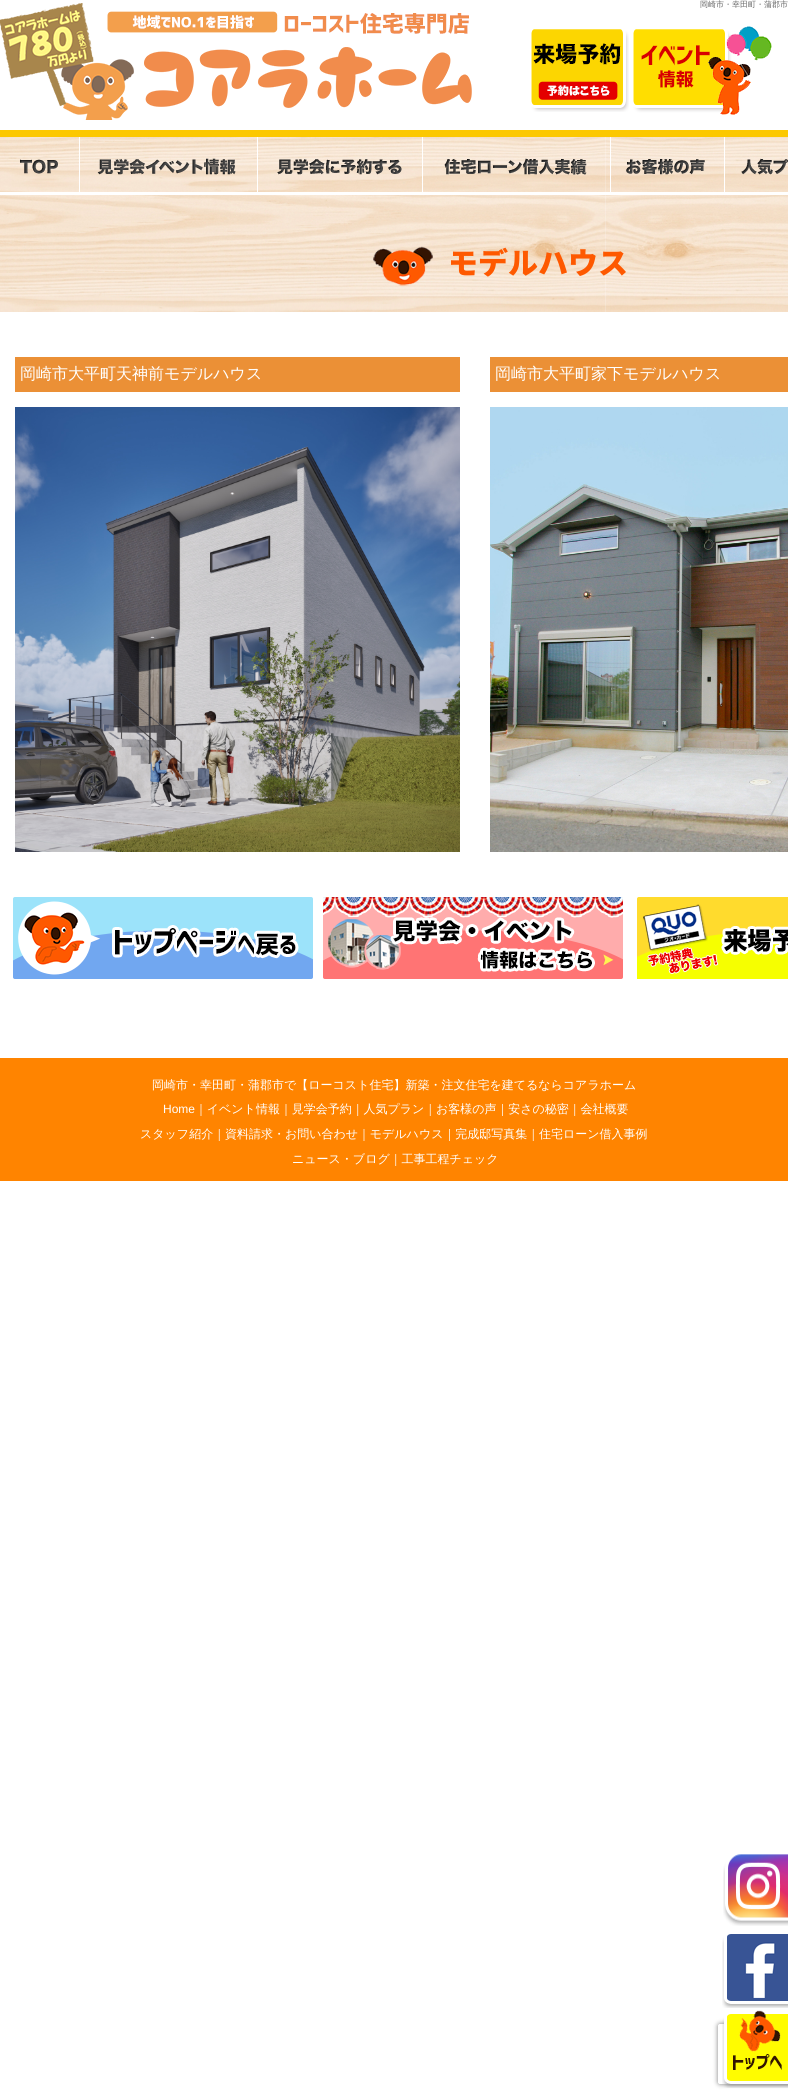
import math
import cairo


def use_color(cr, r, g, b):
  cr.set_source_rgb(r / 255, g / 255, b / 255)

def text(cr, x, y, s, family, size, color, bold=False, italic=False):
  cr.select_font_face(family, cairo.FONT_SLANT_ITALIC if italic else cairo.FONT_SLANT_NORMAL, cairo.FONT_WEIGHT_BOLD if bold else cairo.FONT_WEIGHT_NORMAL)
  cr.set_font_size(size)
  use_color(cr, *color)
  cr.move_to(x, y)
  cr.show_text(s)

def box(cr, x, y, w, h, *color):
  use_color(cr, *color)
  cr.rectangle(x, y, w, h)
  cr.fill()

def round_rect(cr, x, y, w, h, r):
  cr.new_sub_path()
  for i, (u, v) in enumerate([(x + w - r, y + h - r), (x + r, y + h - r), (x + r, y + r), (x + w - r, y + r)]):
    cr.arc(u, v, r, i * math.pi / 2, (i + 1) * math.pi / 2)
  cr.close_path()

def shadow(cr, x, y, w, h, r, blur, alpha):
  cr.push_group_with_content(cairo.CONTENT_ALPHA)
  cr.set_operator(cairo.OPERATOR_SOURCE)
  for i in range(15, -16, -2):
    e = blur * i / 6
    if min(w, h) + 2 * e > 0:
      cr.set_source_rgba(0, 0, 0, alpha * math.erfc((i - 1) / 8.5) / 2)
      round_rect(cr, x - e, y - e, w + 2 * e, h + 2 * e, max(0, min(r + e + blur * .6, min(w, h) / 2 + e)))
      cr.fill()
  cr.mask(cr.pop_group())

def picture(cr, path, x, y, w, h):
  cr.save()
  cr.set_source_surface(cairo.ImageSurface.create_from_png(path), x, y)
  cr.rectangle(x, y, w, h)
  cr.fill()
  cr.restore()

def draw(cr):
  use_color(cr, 255, 255, 255)
  cr.paint()
  picture(cr, "img_01.png", 0, 3, 472, 117)
  picture(cr, "img_02.png", 531, 29, 98, 83)
  picture(cr, "img_03.png", 633, 26, 139, 89)
  picture(cr, "img_04.png", 0, 137, 788, 55)
  box(cr, 0, 130, 788, 7, 252, 200, 0)
  box(cr, 79, 137, 1, 55, 255, 255, 255)
  picture(cr, "img_05.png", 20, 159, 38, 15)
  box(cr, 257, 137, 1, 55, 255, 255, 255)
  picture(cr, "img_06.png", 97, 158, 139, 17)
  box(cr, 422, 137, 1, 55, 255, 255, 255)
  picture(cr, "img_07.png", 277, 159, 125, 16)
  box(cr, 610, 137, 1, 55, 255, 255, 255)
  picture(cr, "img_08.png", 444, 158, 143, 17)
  box(cr, 724, 137, 1, 55, 255, 255, 255)
  picture(cr, "img_09.png", 626, 159, 79, 16)
  picture(cr, "img_10.png", 741, 158, 47, 17)
  picture(cr, "img_11.png", 0, 195, 788, 117)
  picture(cr, "img_12.png", 373, 246, 60, 40)
  box(cr, 15, 357, 445, 35, 235, 144, 54)
  picture(cr, "img_13.png", 15, 407, 445, 445)
  box(cr, 490, 357, 298, 35, 235, 144, 54)
  picture(cr, "img_14.png", 490, 407, 298, 445)
  picture(cr, "img_15.png", 13, 897, 300, 82)
  picture(cr, "img_16.png", 323, 897, 300, 82)
  picture(cr, "img_17.png", 637, 897, 151, 82)
  box(cr, 0, 1058, 788, 123, 255, 132, 0)
  picture(cr, "img_18.png", 723, 1854, 65, 72)
  picture(cr, "img_19.png", 722, 1934, 66, 74)
  cr.save()
  cr.set_fill_rule(cairo.FILL_RULE_EVEN_ODD)
  cr.new_path()
  cr.move_to(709, 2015)
  cr.line_to(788, 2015)
  cr.line_to(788, 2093)
  cr.line_to(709, 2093)
  cr.close_path()
  cr.move_to(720, 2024)
  cr.line_to(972, 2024)
  cr.curve_to(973, 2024, 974, 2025, 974, 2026)
  cr.line_to(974, 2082)
  cr.curve_to(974, 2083, 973, 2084, 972, 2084)
  cr.line_to(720, 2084)
  cr.curve_to(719, 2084, 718, 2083, 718, 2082)
  cr.line_to(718, 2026)
  cr.curve_to(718, 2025, 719, 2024, 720, 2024)
  cr.close_path()
  cr.clip()
  use_color(cr, 128, 128, 128)
  shadow(cr, 718, 2024, 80, 60, 2, 2.5, 1)
  cr.restore()
  picture(cr, "img_20.png", 722, 2010, 66, 78)
  text(cr, 700, 7, "岡崎市・幸田町・蒲郡市", "WenQuanYi Zen Hei Medium", 8, (102, 102, 102))
  text(cr, 448, 274, "モデルハウス", "Noto Sans JP Black", 30, (254, 89, 0))
  text(cr, 20, 379, "岡崎市大平町天神前モデルハウス", "WenQuanYi Zen Hei Medium", 16, (255, 255, 255))
  text(cr, 495, 379, "岡崎市大平町家下モデルハウス", "WenQuanYi Zen Hei Medium", 16, (255, 255, 255))
  text(cr, 152, 1089, "岡崎市・幸田町・蒲郡市で【ローコスト住宅】新築・注文住宅を建てるならコアラホーム", "WenQuanYi Zen Hei Medium", 12, (255, 255, 255))
  text(cr, 163, 1113, "Home", "Liberation Sans", 12, (255, 255, 255))
  text(cr, 195, 1113, "｜イベント情報｜見学会予約｜人気プラン｜お客様の声｜安さの秘密｜会社概要", "WenQuanYi Zen Hei Medium", 12, (255, 255, 255))
  text(cr, 140, 1138, "スタッフ紹介｜資料請求・お問い合わせ｜モデルハウス｜完成邸写真集｜住宅ローン借入事例", "WenQuanYi Zen Hei Medium", 12, (255, 255, 255))
  text(cr, 292, 1163, "ニュース・ブログ｜工事工程チェック", "WenQuanYi Zen Hei Medium", 12, (255, 255, 255))


surface = cairo.ImageSurface(cairo.FORMAT_RGB24, 788, 2098)
cr = cairo.Context(surface)
options = cairo.FontOptions()
options.set_hint_metrics(cairo.HINT_METRICS_OFF)
options.set_hint_style(cairo.HINT_STYLE_NONE)
cr.set_font_options(options)
cr.set_miter_limit(4)
draw(cr)
surface.write_to_png("out.png")
